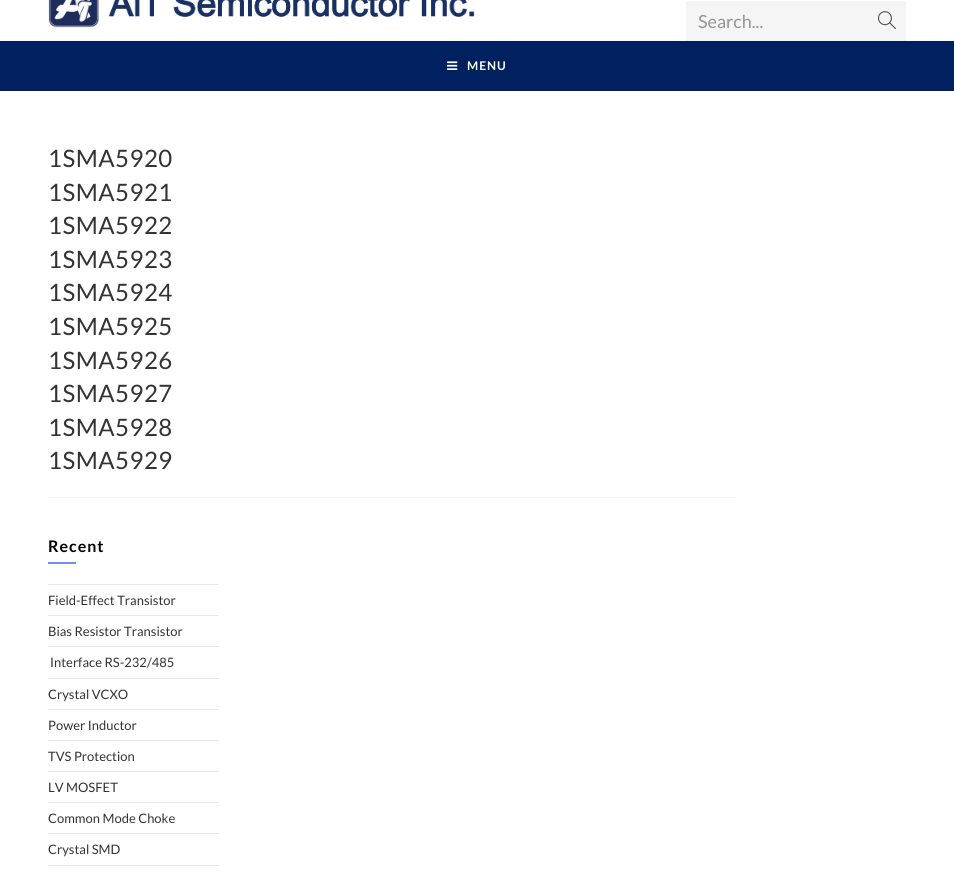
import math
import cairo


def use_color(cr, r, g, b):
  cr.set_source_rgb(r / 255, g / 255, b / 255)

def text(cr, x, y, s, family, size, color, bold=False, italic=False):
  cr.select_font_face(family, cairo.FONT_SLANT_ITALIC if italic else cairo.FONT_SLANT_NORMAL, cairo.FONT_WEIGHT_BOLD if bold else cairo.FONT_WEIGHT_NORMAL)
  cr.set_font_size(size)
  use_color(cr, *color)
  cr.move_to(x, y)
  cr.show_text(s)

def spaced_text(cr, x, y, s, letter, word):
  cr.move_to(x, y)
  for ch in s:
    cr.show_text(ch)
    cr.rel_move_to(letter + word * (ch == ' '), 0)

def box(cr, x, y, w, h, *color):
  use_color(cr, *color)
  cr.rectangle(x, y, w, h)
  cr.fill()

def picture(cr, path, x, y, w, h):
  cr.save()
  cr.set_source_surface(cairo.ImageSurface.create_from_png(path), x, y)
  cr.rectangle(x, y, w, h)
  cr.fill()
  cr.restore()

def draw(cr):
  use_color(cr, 255, 255, 255)
  cr.paint()
  picture(cr, "img_01.png", 48, 0, 427, 28)
  box(cr, 686, 1, 220, 40, 245, 245, 245)
  picture(cr, "img_02.png", 878, 11, 18, 19)
  box(cr, 0, 41, 954, 50, 0, 32, 96)
  picture(cr, "img_03.png", 447, 61, 11, 9)
  box(cr, 48, 497, 687, 1, 241, 241, 241)
  box(cr, 48, 562, 28, 2, 110, 143, 239)
  box(cr, 48, 584, 171, 1, 233, 233, 233)
  box(cr, 48, 615, 171, 1, 233, 233, 233)
  box(cr, 48, 646, 171, 1, 233, 233, 233)
  box(cr, 48, 678, 171, 1, 233, 233, 233)
  box(cr, 48, 709, 171, 1, 233, 233, 233)
  box(cr, 48, 740, 171, 1, 233, 233, 233)
  box(cr, 48, 771, 171, 1, 233, 233, 233)
  box(cr, 48, 802, 171, 1, 233, 233, 233)
  box(cr, 48, 833, 171, 1, 233, 233, 233)
  box(cr, 48, 865, 171, 1, 233, 233, 233)
  text(cr, 698, 28, "Search...", "Lato", 18, (148, 148, 148))
  cr.select_font_face("Lato", cairo.FONT_SLANT_NORMAL, cairo.FONT_WEIGHT_BOLD)
  cr.set_font_size(12)
  use_color(cr, 255, 255, 255)
  spaced_text(cr, 467, 70, "MENU", 1, 0)
  cr.select_font_face("Lato")
  cr.set_font_size(24)
  use_color(cr, 51, 51, 51)
  spaced_text(cr, 48, 167, "1SMA5920", 0.5, 0)
  spaced_text(cr, 48, 201, "1SMA5921", 0.5, 0)
  spaced_text(cr, 48, 234, "1SMA5922", 0.5, 0)
  spaced_text(cr, 48, 268, "1SMA5923", 0.5, 0)
  spaced_text(cr, 48, 301, "1SMA5924", 0.5, 0)
  spaced_text(cr, 48, 335, "1SMA5925", 0.5, 0)
  spaced_text(cr, 48, 369, "1SMA5926", 0.5, 0)
  spaced_text(cr, 48, 402, "1SMA5927", 0.5, 0)
  spaced_text(cr, 48, 436, "1SMA5928", 0.5, 0)
  spaced_text(cr, 48, 469, "1SMA5929", 0.5, 0)
  cr.select_font_face("Lato", cairo.FONT_SLANT_NORMAL, cairo.FONT_WEIGHT_BOLD)
  cr.set_font_size(16)
  use_color(cr, 0, 0, 0)
  spaced_text(cr, 48, 552, "Recent", 1, 0)
  text(cr, 48, 605, "Field-Effect Transistor", "Lato", 13, (51, 51, 51))
  text(cr, 48, 636, "Bias Resistor Transistor", "Lato", 13, (51, 51, 51))
  text(cr, 50, 667, "Interface RS-232/485", "Lato", 13, (51, 51, 51))
  text(cr, 48, 699, "Crystal VCXO", "Lato", 13, (51, 51, 51))
  text(cr, 48, 730, "Power Inductor", "Lato", 13, (51, 51, 51))
  text(cr, 48, 761, "TVS Protection", "Lato", 13, (51, 51, 51))
  text(cr, 48, 792, "LV MOSFET", "Lato", 13, (51, 51, 51))
  text(cr, 48, 823, "Common Mode Choke", "Lato", 13, (51, 51, 51))
  text(cr, 48, 854, "Crystal SMD", "Lato", 13, (51, 51, 51))


surface = cairo.ImageSurface(cairo.FORMAT_RGB24, 954, 872)
cr = cairo.Context(surface)
options = cairo.FontOptions()
options.set_hint_metrics(cairo.HINT_METRICS_OFF)
options.set_hint_style(cairo.HINT_STYLE_NONE)
cr.set_font_options(options)
cr.set_miter_limit(4)
draw(cr)
surface.write_to_png("out.png")
